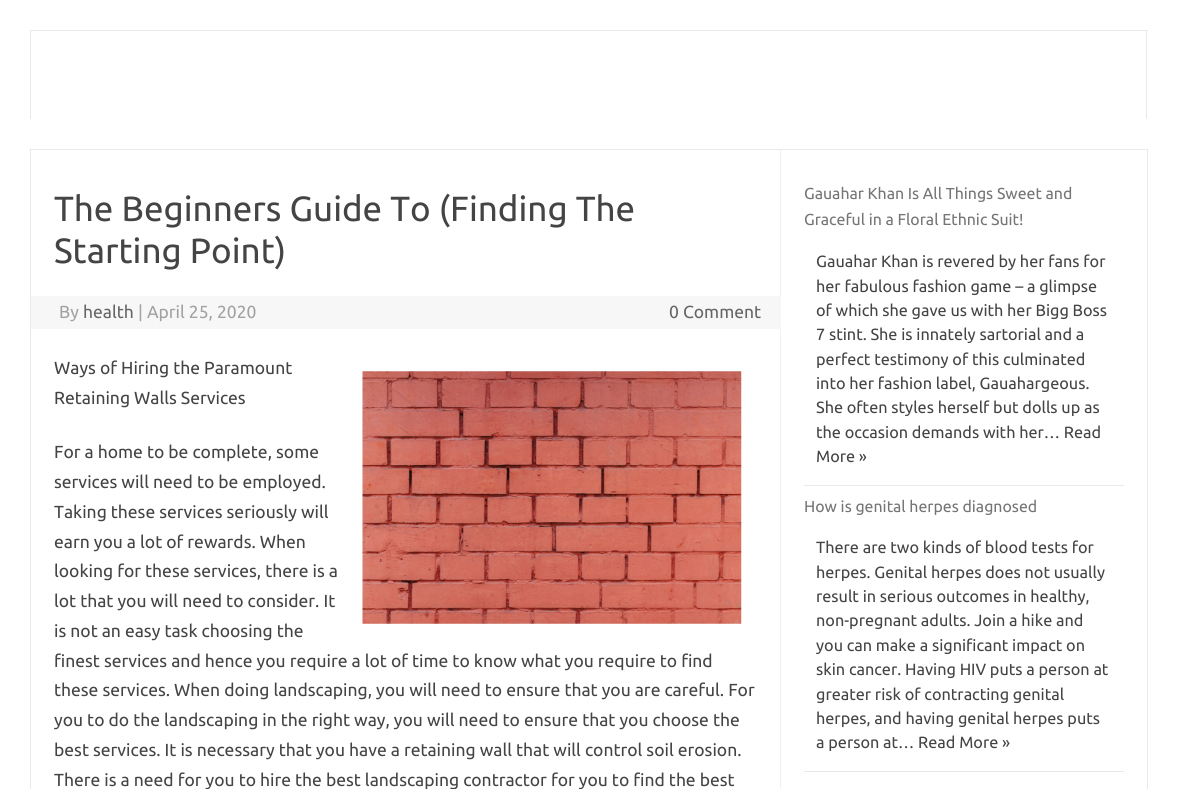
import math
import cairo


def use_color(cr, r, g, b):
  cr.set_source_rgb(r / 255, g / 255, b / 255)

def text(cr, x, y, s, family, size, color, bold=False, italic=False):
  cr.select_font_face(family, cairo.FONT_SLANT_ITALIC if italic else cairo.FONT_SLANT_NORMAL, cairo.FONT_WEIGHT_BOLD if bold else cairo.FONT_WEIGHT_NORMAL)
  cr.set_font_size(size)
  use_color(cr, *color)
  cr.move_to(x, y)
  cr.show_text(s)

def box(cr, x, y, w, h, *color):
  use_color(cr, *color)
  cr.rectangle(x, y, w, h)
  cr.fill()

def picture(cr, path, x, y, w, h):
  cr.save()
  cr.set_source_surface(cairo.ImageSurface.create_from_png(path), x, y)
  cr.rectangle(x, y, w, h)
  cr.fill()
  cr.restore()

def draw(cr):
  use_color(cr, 255, 255, 255)
  cr.paint()
  box(cr, 30, 30, 1118, 1, 233, 233, 233)
  box(cr, 1146, 30, 1, 89, 233, 233, 233)
  box(cr, 30, 30, 1, 89, 233, 233, 233)
  cr.rectangle(30.5, 149.5, 1117, 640)
  cr.set_line_width(1)
  cr.stroke()
  box(cr, 780, 150, 1, 639, 241, 241, 241)
  box(cr, 31, 296, 750, 33, 247, 247, 247)
  picture(cr, "img_01.png", 362, 371, 380, 253)
  box(cr, 804, 485, 320, 1, 233, 233, 233)
  box(cr, 804, 771, 320, 1, 233, 233, 233)
  text(cr, 54, 221, "The Beginners Guide To (Finding The", "Ubuntu", 35, (68, 68, 68))
  text(cr, 54, 263, "Starting Point)", "Ubuntu", 35, (68, 68, 68))
  text(cr, 59, 318, "By", "Ubuntu", 17.5, (162, 162, 162))
  text(cr, 83, 318, "health", "Ubuntu", 17.5, (102, 102, 102))
  text(cr, 138, 318, "| April 25, 2020", "Ubuntu", 17.5, (162, 162, 162))
  text(cr, 669, 318, "0 Comment", "Ubuntu", 17.5, (102, 102, 102))
  text(cr, 54, 374, "Ways of Hiring the Paramount", "Ubuntu", 17.5, (68, 68, 68))
  text(cr, 54, 404, "Retaining Walls Services", "Ubuntu", 17.5, (68, 68, 68))
  text(cr, 54, 458, "For a home to be complete, some", "Ubuntu", 17.5, (68, 68, 68))
  text(cr, 54, 488, "services will need to be employed.", "Ubuntu", 17.5, (68, 68, 68))
  text(cr, 54, 518, "Taking these services seriously will", "Ubuntu", 17.5, (68, 68, 68))
  text(cr, 54, 548, "earn you a lot of rewards. When", "Ubuntu", 17.5, (68, 68, 68))
  text(cr, 54, 577, "looking for these services, there is a", "Ubuntu", 17.5, (68, 68, 68))
  text(cr, 54, 607, "lot that you will need to consider. It", "Ubuntu", 17.5, (68, 68, 68))
  text(cr, 54, 637, "is not an easy task choosing the", "Ubuntu", 17.5, (68, 68, 68))
  text(cr, 54, 667, "finest services and hence you require a lot of time to know what you require to find", "Ubuntu", 17.5, (68, 68, 68))
  text(cr, 54, 696, "these services. When doing landscaping, you will need to ensure that you are careful. For", "Ubuntu", 17.5, (68, 68, 68))
  text(cr, 54, 726, "you to do the landscaping in the right way, you will need to ensure that you choose the", "Ubuntu", 17.5, (68, 68, 68))
  text(cr, 54, 756, "best services. It is necessary that you have a retaining wall that will control soil erosion.", "Ubuntu", 17.5, (68, 68, 68))
  text(cr, 54, 786, "There is a need for you to hire the best landscaping contractor for you to find the best", "Ubuntu", 17.5, (68, 68, 68))
  text(cr, 804, 199, "Gauahar Khan Is All Things Sweet and", "Ubuntu", 15.9, (117, 117, 117))
  text(cr, 804, 225, "Graceful in a Floral Ethnic Suit!", "Ubuntu", 15.9, (117, 117, 117))
  text(cr, 816, 267, "Gauahar Khan is revered by her fans for", "Ubuntu", 16.25, (68, 68, 68))
  text(cr, 816, 292, "her fabulous fashion game – a glimpse", "Ubuntu", 16.25, (68, 68, 68))
  text(cr, 816, 316, "of which she gave us with her Bigg Boss", "Ubuntu", 16.25, (68, 68, 68))
  text(cr, 816, 340, "7 stint. She is innately sartorial and a", "Ubuntu", 16.25, (68, 68, 68))
  text(cr, 816, 365, "perfect testimony of this culminated", "Ubuntu", 16.25, (68, 68, 68))
  text(cr, 816, 389, "into her fashion label, Gauahargeous.", "Ubuntu", 16.25, (68, 68, 68))
  text(cr, 816, 413, "She often styles herself but dolls up as", "Ubuntu", 16.25, (68, 68, 68))
  text(cr, 816, 438, "the occasion demands with her… Read", "Ubuntu", 16.25, (68, 68, 68))
  text(cr, 816, 462, "More »", "Ubuntu", 16.25, (68, 68, 68))
  text(cr, 804, 512, "How is genital herpes diagnosed", "Ubuntu", 15.9, (117, 117, 117))
  text(cr, 816, 553, "There are two kinds of blood tests for", "Ubuntu", 16.25, (68, 68, 68))
  text(cr, 816, 578, "herpes. Genital herpes does not usually", "Ubuntu", 16.25, (68, 68, 68))
  text(cr, 816, 602, "result in serious outcomes in healthy,", "Ubuntu", 16.25, (68, 68, 68))
  text(cr, 816, 626, "non-pregnant adults. Join a hike and", "Ubuntu", 16.25, (68, 68, 68))
  text(cr, 816, 651, "you can make a significant impact on", "Ubuntu", 16.25, (68, 68, 68))
  text(cr, 816, 675, "skin cancer. Having HIV puts a person at", "Ubuntu", 16.25, (68, 68, 68))
  text(cr, 816, 700, "greater risk of contracting genital", "Ubuntu", 16.25, (68, 68, 68))
  text(cr, 816, 724, "herpes, and having genital herpes puts", "Ubuntu", 16.25, (68, 68, 68))
  text(cr, 816, 748, "a person at… Read More »", "Ubuntu", 16.25, (68, 68, 68))


surface = cairo.ImageSurface(cairo.FORMAT_RGB24, 1177, 789)
cr = cairo.Context(surface)
options = cairo.FontOptions()
options.set_hint_metrics(cairo.HINT_METRICS_OFF)
options.set_hint_style(cairo.HINT_STYLE_NONE)
cr.set_font_options(options)
cr.set_miter_limit(4)
draw(cr)
surface.write_to_png("out.png")
